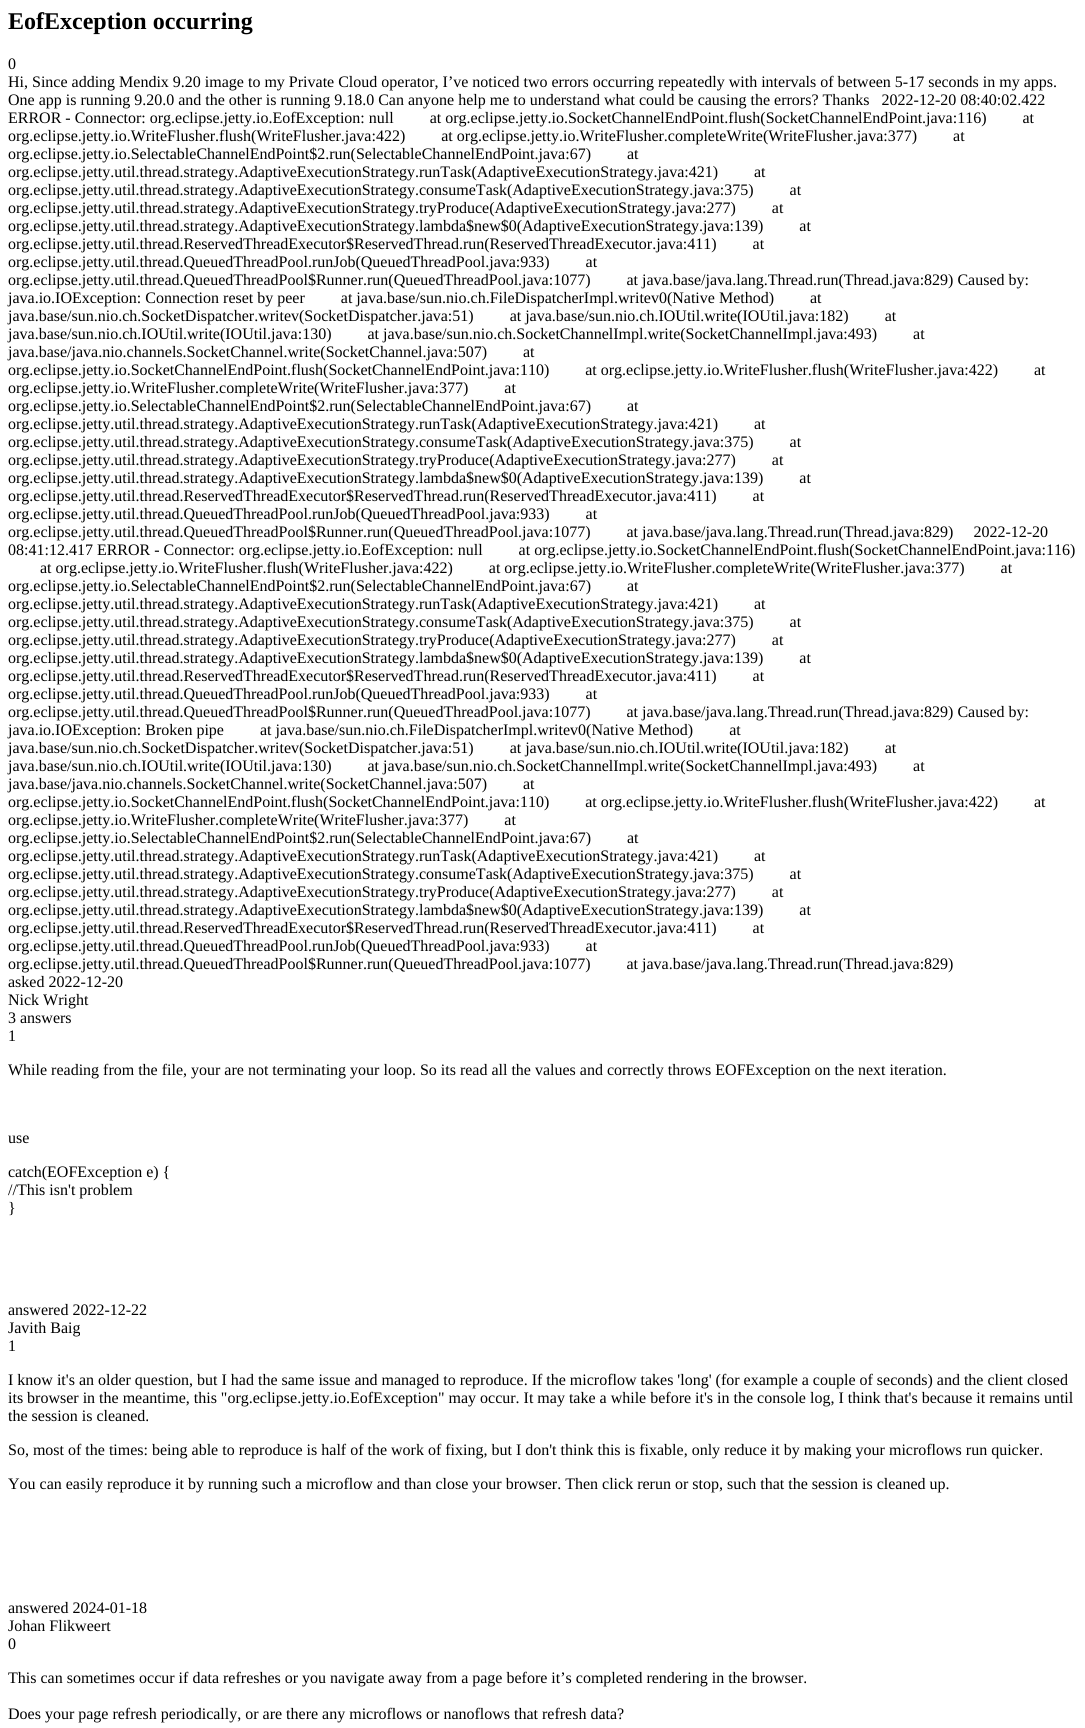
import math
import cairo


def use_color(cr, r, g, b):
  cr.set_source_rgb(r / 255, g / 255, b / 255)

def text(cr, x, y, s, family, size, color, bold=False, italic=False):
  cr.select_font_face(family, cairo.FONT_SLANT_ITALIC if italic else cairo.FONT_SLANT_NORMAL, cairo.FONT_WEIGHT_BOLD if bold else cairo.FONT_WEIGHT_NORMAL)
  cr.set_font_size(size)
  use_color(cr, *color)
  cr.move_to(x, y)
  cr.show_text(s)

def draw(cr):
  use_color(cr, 255, 255, 255)
  cr.paint()
  text(cr, 8, 29, "EofException occurring", "Liberation Serif", 24, (0, 0, 0), bold=True)
  text(cr, 8, 69, "0", "Liberation Serif", 16, (0, 0, 0))
  text(cr, 8, 87, "Hi, Since adding Mendix 9.20 image to my Private Cloud operator, I’ve noticed two errors occurring repeatedly with intervals of between 5-17 seconds in my apps.", "Liberation Serif", 16, (0, 0, 0))
  text(cr, 8, 105, "One app is running 9.20.0 and the other is running 9.18.0 Can anyone help me to understand what could be causing the errors? Thanks   2022-12-20 08:40:02.422", "Liberation Serif", 16, (0, 0, 0))
  text(cr, 8, 123, "ERROR - Connector: org.eclipse.jetty.io.EofException: null         at org.eclipse.jetty.io.SocketChannelEndPoint.flush(SocketChannelEndPoint.java:116)         at", "Liberation Serif", 16, (0, 0, 0))
  text(cr, 8, 141, "org.eclipse.jetty.io.WriteFlusher.flush(WriteFlusher.java:422)         at org.eclipse.jetty.io.WriteFlusher.completeWrite(WriteFlusher.java:377)         at", "Liberation Serif", 16, (0, 0, 0))
  text(cr, 8, 159, "org.eclipse.jetty.io.SelectableChannelEndPoint$2.run(SelectableChannelEndPoint.java:67)         at", "Liberation Serif", 16, (0, 0, 0))
  text(cr, 8, 177, "org.eclipse.jetty.util.thread.strategy.AdaptiveExecutionStrategy.runTask(AdaptiveExecutionStrategy.java:421)         at", "Liberation Serif", 16, (0, 0, 0))
  text(cr, 8, 195, "org.eclipse.jetty.util.thread.strategy.AdaptiveExecutionStrategy.consumeTask(AdaptiveExecutionStrategy.java:375)         at", "Liberation Serif", 16, (0, 0, 0))
  text(cr, 8, 213, "org.eclipse.jetty.util.thread.strategy.AdaptiveExecutionStrategy.tryProduce(AdaptiveExecutionStrategy.java:277)         at", "Liberation Serif", 16, (0, 0, 0))
  text(cr, 8, 231, "org.eclipse.jetty.util.thread.strategy.AdaptiveExecutionStrategy.lambda$new$0(AdaptiveExecutionStrategy.java:139)         at", "Liberation Serif", 16, (0, 0, 0))
  text(cr, 8, 249, "org.eclipse.jetty.util.thread.ReservedThreadExecutor$ReservedThread.run(ReservedThreadExecutor.java:411)         at", "Liberation Serif", 16, (0, 0, 0))
  text(cr, 8, 267, "org.eclipse.jetty.util.thread.QueuedThreadPool.runJob(QueuedThreadPool.java:933)         at", "Liberation Serif", 16, (0, 0, 0))
  text(cr, 8, 285, "org.eclipse.jetty.util.thread.QueuedThreadPool$Runner.run(QueuedThreadPool.java:1077)         at java.base/java.lang.Thread.run(Thread.java:829) Caused by:", "Liberation Serif", 16, (0, 0, 0))
  text(cr, 8, 303, "java.io.IOException: Connection reset by peer         at java.base/sun.nio.ch.FileDispatcherImpl.writev0(Native Method)         at", "Liberation Serif", 16, (0, 0, 0))
  text(cr, 8, 321, "java.base/sun.nio.ch.SocketDispatcher.writev(SocketDispatcher.java:51)         at java.base/sun.nio.ch.IOUtil.write(IOUtil.java:182)         at", "Liberation Serif", 16, (0, 0, 0))
  text(cr, 8, 339, "java.base/sun.nio.ch.IOUtil.write(IOUtil.java:130)         at java.base/sun.nio.ch.SocketChannelImpl.write(SocketChannelImpl.java:493)         at", "Liberation Serif", 16, (0, 0, 0))
  text(cr, 8, 357, "java.base/java.nio.channels.SocketChannel.write(SocketChannel.java:507)         at", "Liberation Serif", 16, (0, 0, 0))
  text(cr, 8, 375, "org.eclipse.jetty.io.SocketChannelEndPoint.flush(SocketChannelEndPoint.java:110)         at org.eclipse.jetty.io.WriteFlusher.flush(WriteFlusher.java:422)         at", "Liberation Serif", 16, (0, 0, 0))
  text(cr, 8, 393, "org.eclipse.jetty.io.WriteFlusher.completeWrite(WriteFlusher.java:377)         at", "Liberation Serif", 16, (0, 0, 0))
  text(cr, 8, 411, "org.eclipse.jetty.io.SelectableChannelEndPoint$2.run(SelectableChannelEndPoint.java:67)         at", "Liberation Serif", 16, (0, 0, 0))
  text(cr, 8, 429, "org.eclipse.jetty.util.thread.strategy.AdaptiveExecutionStrategy.runTask(AdaptiveExecutionStrategy.java:421)         at", "Liberation Serif", 16, (0, 0, 0))
  text(cr, 8, 447, "org.eclipse.jetty.util.thread.strategy.AdaptiveExecutionStrategy.consumeTask(AdaptiveExecutionStrategy.java:375)         at", "Liberation Serif", 16, (0, 0, 0))
  text(cr, 8, 465, "org.eclipse.jetty.util.thread.strategy.AdaptiveExecutionStrategy.tryProduce(AdaptiveExecutionStrategy.java:277)         at", "Liberation Serif", 16, (0, 0, 0))
  text(cr, 8, 483, "org.eclipse.jetty.util.thread.strategy.AdaptiveExecutionStrategy.lambda$new$0(AdaptiveExecutionStrategy.java:139)         at", "Liberation Serif", 16, (0, 0, 0))
  text(cr, 8, 501, "org.eclipse.jetty.util.thread.ReservedThreadExecutor$ReservedThread.run(ReservedThreadExecutor.java:411)         at", "Liberation Serif", 16, (0, 0, 0))
  text(cr, 8, 519, "org.eclipse.jetty.util.thread.QueuedThreadPool.runJob(QueuedThreadPool.java:933)         at", "Liberation Serif", 16, (0, 0, 0))
  text(cr, 8, 537, "org.eclipse.jetty.util.thread.QueuedThreadPool$Runner.run(QueuedThreadPool.java:1077)         at java.base/java.lang.Thread.run(Thread.java:829)     2022-12-20", "Liberation Serif", 16, (0, 0, 0))
  text(cr, 8, 555, "08:41:12.417 ERROR - Connector: org.eclipse.jetty.io.EofException: null         at org.eclipse.jetty.io.SocketChannelEndPoint.flush(SocketChannelEndPoint.java:116)", "Liberation Serif", 16, (0, 0, 0))
  text(cr, 40, 573, "at org.eclipse.jetty.io.WriteFlusher.flush(WriteFlusher.java:422)         at org.eclipse.jetty.io.WriteFlusher.completeWrite(WriteFlusher.java:377)         at", "Liberation Serif", 16, (0, 0, 0))
  text(cr, 8, 591, "org.eclipse.jetty.io.SelectableChannelEndPoint$2.run(SelectableChannelEndPoint.java:67)         at", "Liberation Serif", 16, (0, 0, 0))
  text(cr, 8, 609, "org.eclipse.jetty.util.thread.strategy.AdaptiveExecutionStrategy.runTask(AdaptiveExecutionStrategy.java:421)         at", "Liberation Serif", 16, (0, 0, 0))
  text(cr, 8, 627, "org.eclipse.jetty.util.thread.strategy.AdaptiveExecutionStrategy.consumeTask(AdaptiveExecutionStrategy.java:375)         at", "Liberation Serif", 16, (0, 0, 0))
  text(cr, 8, 645, "org.eclipse.jetty.util.thread.strategy.AdaptiveExecutionStrategy.tryProduce(AdaptiveExecutionStrategy.java:277)         at", "Liberation Serif", 16, (0, 0, 0))
  text(cr, 8, 663, "org.eclipse.jetty.util.thread.strategy.AdaptiveExecutionStrategy.lambda$new$0(AdaptiveExecutionStrategy.java:139)         at", "Liberation Serif", 16, (0, 0, 0))
  text(cr, 8, 681, "org.eclipse.jetty.util.thread.ReservedThreadExecutor$ReservedThread.run(ReservedThreadExecutor.java:411)         at", "Liberation Serif", 16, (0, 0, 0))
  text(cr, 8, 699, "org.eclipse.jetty.util.thread.QueuedThreadPool.runJob(QueuedThreadPool.java:933)         at", "Liberation Serif", 16, (0, 0, 0))
  text(cr, 8, 717, "org.eclipse.jetty.util.thread.QueuedThreadPool$Runner.run(QueuedThreadPool.java:1077)         at java.base/java.lang.Thread.run(Thread.java:829) Caused by:", "Liberation Serif", 16, (0, 0, 0))
  text(cr, 8, 735, "java.io.IOException: Broken pipe         at java.base/sun.nio.ch.FileDispatcherImpl.writev0(Native Method)         at", "Liberation Serif", 16, (0, 0, 0))
  text(cr, 8, 753, "java.base/sun.nio.ch.SocketDispatcher.writev(SocketDispatcher.java:51)         at java.base/sun.nio.ch.IOUtil.write(IOUtil.java:182)         at", "Liberation Serif", 16, (0, 0, 0))
  text(cr, 8, 771, "java.base/sun.nio.ch.IOUtil.write(IOUtil.java:130)         at java.base/sun.nio.ch.SocketChannelImpl.write(SocketChannelImpl.java:493)         at", "Liberation Serif", 16, (0, 0, 0))
  text(cr, 8, 789, "java.base/java.nio.channels.SocketChannel.write(SocketChannel.java:507)         at", "Liberation Serif", 16, (0, 0, 0))
  text(cr, 8, 807, "org.eclipse.jetty.io.SocketChannelEndPoint.flush(SocketChannelEndPoint.java:110)         at org.eclipse.jetty.io.WriteFlusher.flush(WriteFlusher.java:422)         at", "Liberation Serif", 16, (0, 0, 0))
  text(cr, 8, 825, "org.eclipse.jetty.io.WriteFlusher.completeWrite(WriteFlusher.java:377)         at", "Liberation Serif", 16, (0, 0, 0))
  text(cr, 8, 843, "org.eclipse.jetty.io.SelectableChannelEndPoint$2.run(SelectableChannelEndPoint.java:67)         at", "Liberation Serif", 16, (0, 0, 0))
  text(cr, 8, 861, "org.eclipse.jetty.util.thread.strategy.AdaptiveExecutionStrategy.runTask(AdaptiveExecutionStrategy.java:421)         at", "Liberation Serif", 16, (0, 0, 0))
  text(cr, 8, 879, "org.eclipse.jetty.util.thread.strategy.AdaptiveExecutionStrategy.consumeTask(AdaptiveExecutionStrategy.java:375)         at", "Liberation Serif", 16, (0, 0, 0))
  text(cr, 8, 897, "org.eclipse.jetty.util.thread.strategy.AdaptiveExecutionStrategy.tryProduce(AdaptiveExecutionStrategy.java:277)         at", "Liberation Serif", 16, (0, 0, 0))
  text(cr, 8, 915, "org.eclipse.jetty.util.thread.strategy.AdaptiveExecutionStrategy.lambda$new$0(AdaptiveExecutionStrategy.java:139)         at", "Liberation Serif", 16, (0, 0, 0))
  text(cr, 8, 933, "org.eclipse.jetty.util.thread.ReservedThreadExecutor$ReservedThread.run(ReservedThreadExecutor.java:411)         at", "Liberation Serif", 16, (0, 0, 0))
  text(cr, 8, 951, "org.eclipse.jetty.util.thread.QueuedThreadPool.runJob(QueuedThreadPool.java:933)         at", "Liberation Serif", 16, (0, 0, 0))
  text(cr, 8, 969, "org.eclipse.jetty.util.thread.QueuedThreadPool$Runner.run(QueuedThreadPool.java:1077)         at java.base/java.lang.Thread.run(Thread.java:829)", "Liberation Serif", 16, (0, 0, 0))
  text(cr, 8, 987, "asked 2022-12-20", "Liberation Serif", 16, (0, 0, 0))
  text(cr, 8, 1005, "Nick Wright", "Liberation Serif", 16, (0, 0, 0))
  text(cr, 8, 1023, "3 answers", "Liberation Serif", 16, (0, 0, 0))
  text(cr, 8, 1041, "1", "Liberation Serif", 16, (0, 0, 0))
  text(cr, 8, 1075, "While reading from the file, your are not terminating your loop. So its read all the values and correctly throws EOFException on the next iteration.", "Liberation Serif", 16, (0, 0, 0))
  text(cr, 8, 1143, "use", "Liberation Serif", 16, (0, 0, 0))
  text(cr, 8, 1177, "catch(EOFException e) {", "Liberation Serif", 16, (0, 0, 0))
  text(cr, 8, 1195, "//This isn't problem", "Liberation Serif", 16, (0, 0, 0))
  text(cr, 8, 1213, "}", "Liberation Serif", 16, (0, 0, 0))
  text(cr, 8, 1315, "answered 2022-12-22", "Liberation Serif", 16, (0, 0, 0))
  text(cr, 8, 1333, "Javith Baig", "Liberation Serif", 16, (0, 0, 0))
  text(cr, 8, 1351, "1", "Liberation Serif", 16, (0, 0, 0))
  text(cr, 8, 1385, "I know it's an older question, but I had the same issue and managed to reproduce. If the microflow takes 'long' (for example a couple of seconds) and the client closed", "Liberation Serif", 16, (0, 0, 0))
  text(cr, 8, 1403, "its browser in the meantime, this \"org.eclipse.jetty.io.EofException\" may occur. It may take a while before it's in the console log, I think that's because it remains until", "Liberation Serif", 16, (0, 0, 0))
  text(cr, 8, 1421, "the session is cleaned.", "Liberation Serif", 16, (0, 0, 0))
  text(cr, 8, 1455, "So, most of the times: being able to reproduce is half of the work of fixing, but I don't think this is fixable, only reduce it by making your microflows run quicker.", "Liberation Serif", 16, (0, 0, 0))
  text(cr, 8, 1489, "You can easily reproduce it by running such a microflow and than close your browser. Then click rerun or stop, such that the session is cleaned up.", "Liberation Serif", 16, (0, 0, 0))
  text(cr, 8, 1613, "answered 2024-01-18", "Liberation Serif", 16, (0, 0, 0))
  text(cr, 8, 1631, "Johan Flikweert", "Liberation Serif", 16, (0, 0, 0))
  text(cr, 8, 1649, "0", "Liberation Serif", 16, (0, 0, 0))
  text(cr, 8, 1683, "This can sometimes occur if data refreshes or you navigate away from a page before it’s completed rendering in the browser.", "Liberation Serif", 16, (0, 0, 0))
  text(cr, 8, 1719, "Does your page refresh periodically, or are there any microflows or nanoflows that refresh data?", "Liberation Serif", 16, (0, 0, 0))


surface = cairo.ImageSurface(cairo.FORMAT_RGB24, 1085, 1728)
cr = cairo.Context(surface)
options = cairo.FontOptions()
options.set_hint_metrics(cairo.HINT_METRICS_OFF)
options.set_hint_style(cairo.HINT_STYLE_NONE)
cr.set_font_options(options)
cr.set_miter_limit(4)
draw(cr)
surface.write_to_png("out.png")
